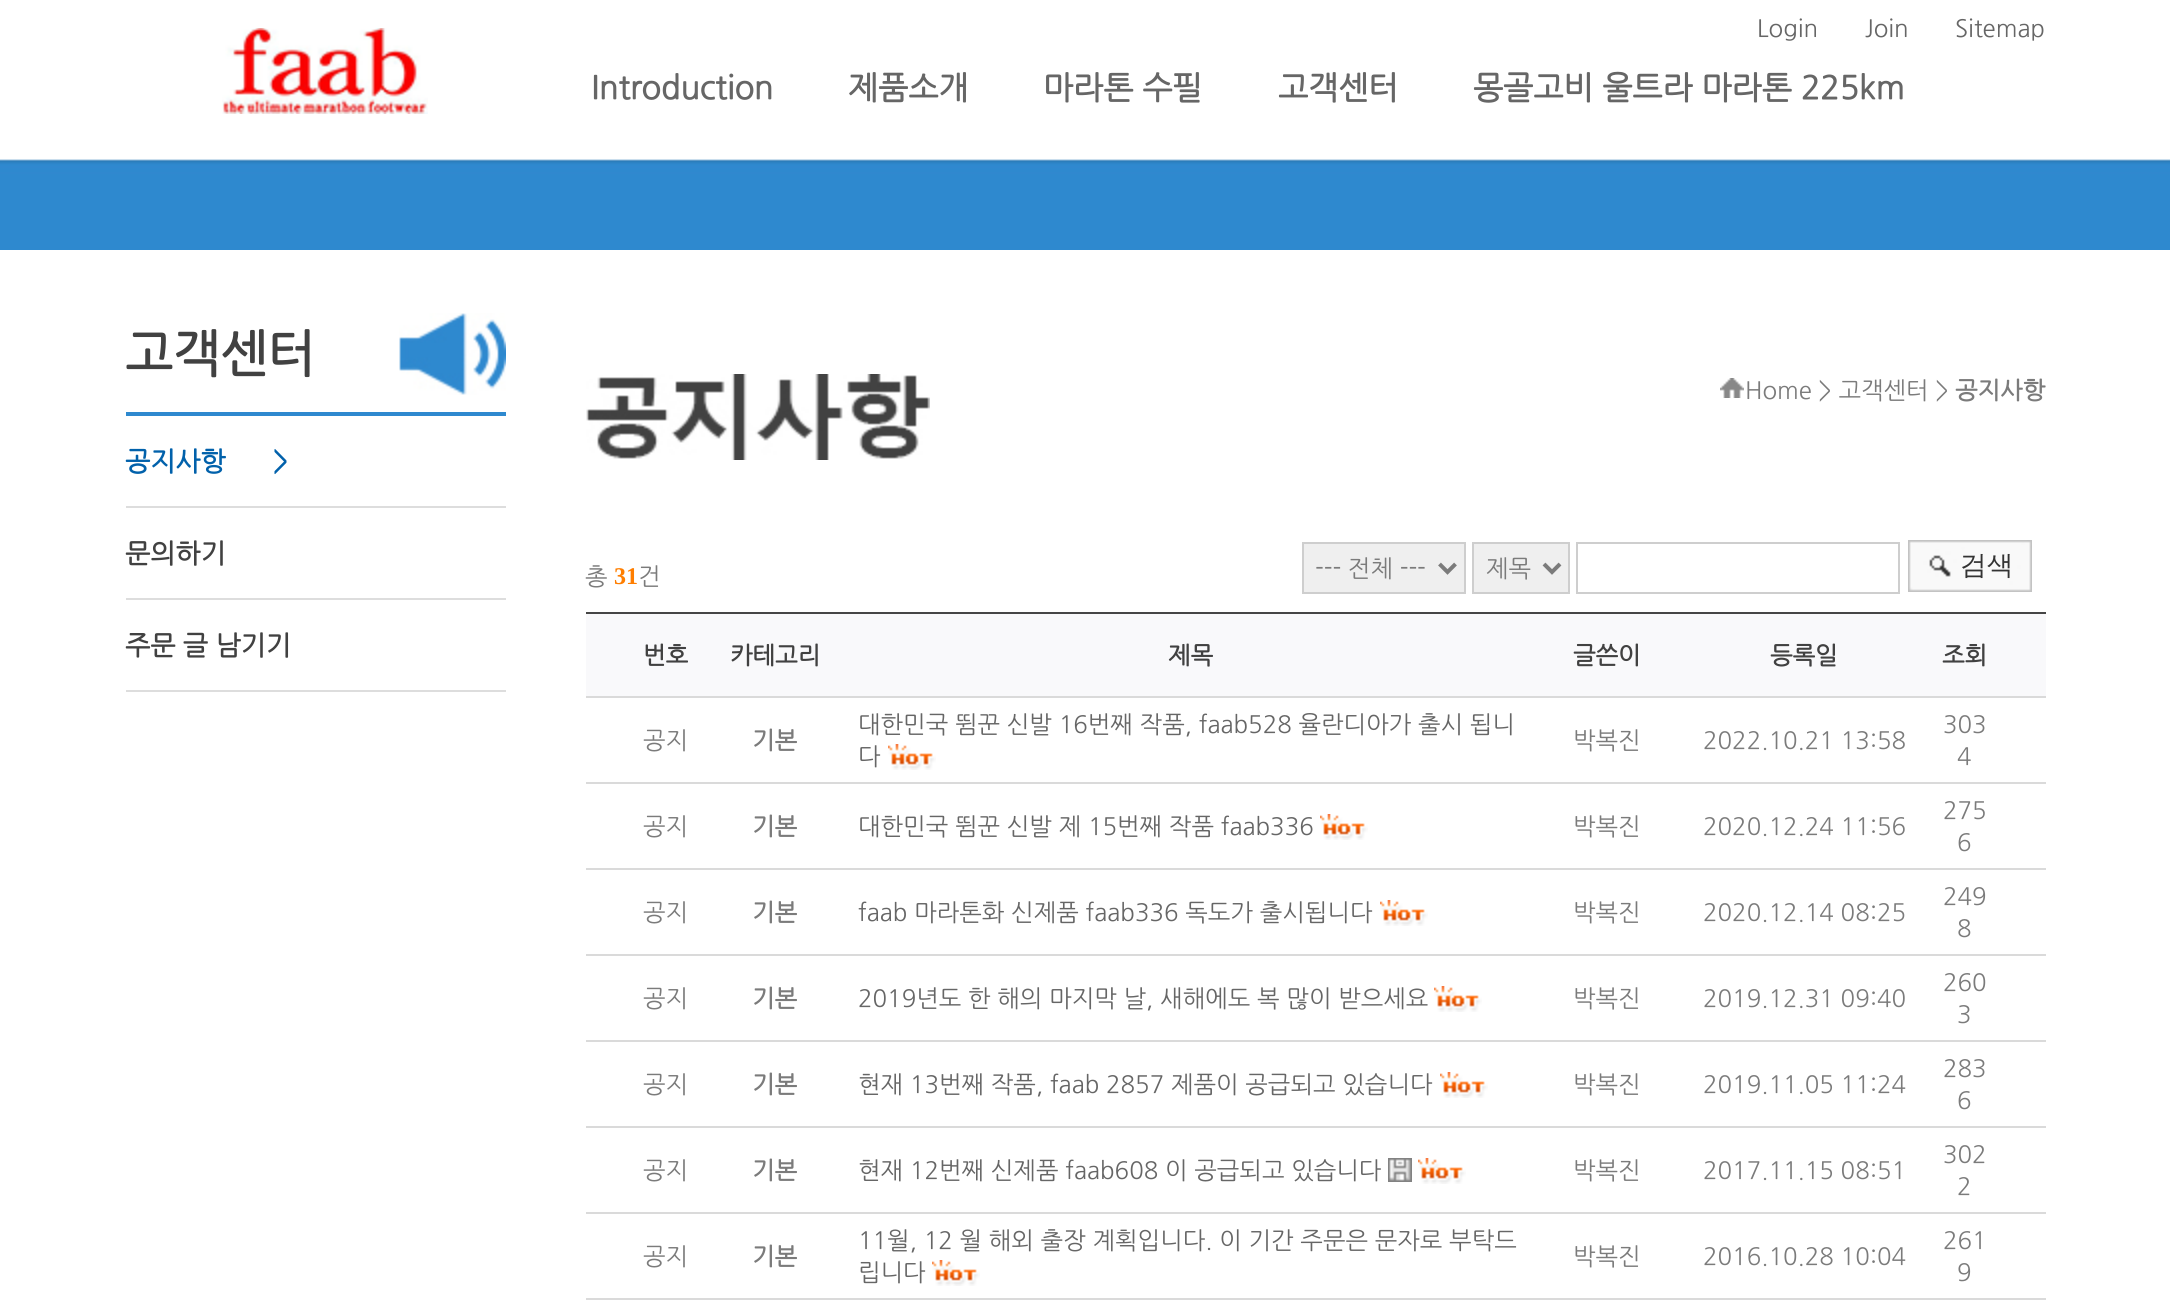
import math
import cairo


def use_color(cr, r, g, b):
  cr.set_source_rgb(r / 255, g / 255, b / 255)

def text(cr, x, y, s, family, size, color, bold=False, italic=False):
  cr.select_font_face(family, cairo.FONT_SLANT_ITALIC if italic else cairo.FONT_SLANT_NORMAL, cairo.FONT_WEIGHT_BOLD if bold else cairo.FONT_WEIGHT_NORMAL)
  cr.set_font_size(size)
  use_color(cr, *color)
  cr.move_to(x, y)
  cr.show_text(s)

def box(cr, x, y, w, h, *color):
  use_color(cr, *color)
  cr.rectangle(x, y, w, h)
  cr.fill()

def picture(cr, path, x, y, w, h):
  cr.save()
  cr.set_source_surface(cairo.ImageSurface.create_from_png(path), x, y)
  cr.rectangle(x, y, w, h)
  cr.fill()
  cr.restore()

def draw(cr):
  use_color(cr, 255, 255, 255)
  cr.paint()
  picture(cr, "img_01.png", 0, 159, 2170, 91)
  picture(cr, "img_02.png", 222, 28, 206, 86)
  box(cr, 126, 412, 380, 4, 46, 137, 207)
  picture(cr, "img_03.png", 399, 313, 107, 82)
  box(cr, 126, 506, 380, 2, 221, 221, 221)
  box(cr, 126, 598, 380, 2, 221, 221, 221)
  box(cr, 126, 690, 380, 2, 221, 221, 221)
  picture(cr, "img_04.png", 586, 374, 344, 86)
  picture(cr, "img_05.png", 1720, 378, 24, 20)
  use_color(cr, 239, 239, 239)
  cr.rectangle(1303, 543, 162, 50)
  cr.fill_preserve()
  use_color(cr, 206, 206, 206)
  cr.stroke()
  cr.new_path()
  cr.move_to(1439.5, 564)
  cr.line_to(1447.5, 572)
  cr.line_to(1455.5, 564)
  use_color(cr, 123, 123, 123)
  cr.set_line_width(4)
  cr.stroke()
  use_color(cr, 239, 239, 239)
  cr.rectangle(1473, 543, 96, 50)
  cr.fill_preserve()
  use_color(cr, 206, 206, 206)
  cr.set_line_width(2)
  cr.stroke()
  cr.new_path()
  cr.move_to(1544, 564)
  cr.line_to(1552, 572)
  cr.line_to(1560, 564)
  use_color(cr, 123, 123, 123)
  cr.set_line_width(4)
  cr.stroke()
  cr.rectangle(1577, 543, 322, 50)
  use_color(cr, 206, 206, 206)
  cr.set_line_width(2)
  cr.stroke()
  picture(cr, "img_06.png", 1908, 540, 124, 52)
  box(cr, 586, 612, 1460, 2, 70, 70, 70)
  box(cr, 586, 696, 1460, 2, 218, 218, 218)
  box(cr, 586, 614, 1460, 82, 249, 249, 251)
  picture(cr, "img_07.png", 888, 744, 48, 26)
  box(cr, 586, 782, 1460, 2, 218, 218, 218)
  picture(cr, "img_07.png", 1320, 814, 48, 26)
  box(cr, 586, 868, 1460, 2, 218, 218, 218)
  picture(cr, "img_07.png", 1380, 900, 48, 26)
  box(cr, 586, 954, 1460, 2, 218, 218, 218)
  picture(cr, "img_07.png", 1434, 986, 48, 26)
  box(cr, 586, 1040, 1460, 2, 218, 218, 218)
  picture(cr, "img_07.png", 1440, 1072, 48, 26)
  box(cr, 586, 1126, 1460, 2, 218, 218, 218)
  picture(cr, "img_08.png", 1388, 1158, 24, 24)
  picture(cr, "img_07.png", 1418, 1158, 48, 26)
  box(cr, 586, 1212, 1460, 2, 218, 218, 218)
  picture(cr, "img_07.png", 932, 1260, 48, 26)
  box(cr, 586, 1298, 1460, 2, 218, 218, 218)
  text(cr, 1757, 36, "Login", "NanumGothic", 24, (102, 102, 102))
  text(cr, 1865, 36, "Join", "NanumGothic", 24, (102, 102, 102))
  text(cr, 1955, 36, "Sitemap", "NanumGothic", 24, (102, 102, 102))
  text(cr, 591, 98, "Introduction", "NanumGothic", 32, (102, 102, 102), bold=True)
  text(cr, 848, 98, "제품소개", "NanumGothic", 32, (102, 102, 102), bold=True)
  text(cr, 1043, 98, "마라톤 수필", "NanumGothic", 32, (102, 102, 102), bold=True)
  text(cr, 1278, 98, "고객센터", "NanumGothic", 32, (102, 102, 102), bold=True)
  text(cr, 1473, 98, "몽골고비 울트라 마라톤 225km", "NanumGothic", 32, (102, 102, 102), bold=True)
  text(cr, 125, 370, "고객센터", "NanumGothic", 50.5, (65, 65, 65), bold=True)
  text(cr, 125, 470, "공지사항", "NanumGothic", 26.75, (1, 97, 171), bold=True)
  text(cr, 273, 470, ">", "NanumGothic", 26.75, (1, 97, 171), bold=True)
  text(cr, 125, 562, "문의하기", "NanumGothic", 26.75, (65, 65, 65), bold=True)
  text(cr, 125, 654, "주문 글 남기기", "NanumGothic", 26.75, (65, 65, 65), bold=True)
  text(cr, 1745, 398, "Home > 고객센터 >", "NanumGothic", 24, (123, 123, 123))
  text(cr, 1955, 398, "공지사항", "NanumGothic", 24, (123, 123, 123), bold=True)
  text(cr, 585, 584, "총", "NanumGothic", 24, (123, 123, 123))
  text(cr, 614, 584, "31", "Liberation Serif", 24, (255, 126, 0), bold=True)
  text(cr, 638, 584, "건", "NanumGothic", 24, (123, 123, 123))
  text(cr, 1315, 576, "--- 전체 ---", "NanumGothic", 24, (123, 123, 123))
  text(cr, 1486, 576, "제목", "NanumGothic", 24, (123, 123, 123))
  text(cr, 1960, 574, "검색", "WenQuanYi Zen Hei Medium", 26.75, (51, 51, 51))
  text(cr, 643, 663, "번호", "NanumGothic", 24, (65, 65, 65), bold=True)
  text(cr, 730, 663, "카테고리", "NanumGothic", 24, (65, 65, 65), bold=True)
  text(cr, 1168, 663, "제목", "NanumGothic", 24, (65, 65, 65), bold=True)
  text(cr, 1573, 663, "글쓴이", "NanumGothic", 24, (65, 65, 65), bold=True)
  text(cr, 1770, 663, "등록일", "NanumGothic", 24, (65, 65, 65), bold=True)
  text(cr, 1942, 663, "조회", "NanumGothic", 24, (65, 65, 65), bold=True)
  text(cr, 643, 748, "공지", "NanumGothic", 24, (123, 123, 123))
  text(cr, 752, 748, "기본", "NanumGothic", 24, (123, 123, 123), bold=True)
  text(cr, 858, 732, "대한민국 뜀꾼 신발 16번째 작품, faab528 율란디아가 출시 됩니", "NanumGothic", 24, (102, 102, 102))
  text(cr, 858, 764, "다", "NanumGothic", 24, (102, 102, 102))
  text(cr, 1573, 748, "박복진", "NanumGothic", 24, (123, 123, 123))
  text(cr, 1703, 748, "2022.10.21 13:58", "NanumGothic", 24, (123, 123, 123))
  text(cr, 1943, 732, "303", "NanumGothic", 24, (123, 123, 123))
  text(cr, 1957, 764, "4", "NanumGothic", 24, (123, 123, 123))
  text(cr, 643, 834, "공지", "NanumGothic", 24, (123, 123, 123))
  text(cr, 752, 834, "기본", "NanumGothic", 24, (123, 123, 123), bold=True)
  text(cr, 858, 834, "대한민국 뜀꾼 신발 제 15번째 작품 faab336", "NanumGothic", 24, (102, 102, 102))
  text(cr, 1573, 834, "박복진", "NanumGothic", 24, (123, 123, 123))
  text(cr, 1703, 834, "2020.12.24 11:56", "NanumGothic", 24, (123, 123, 123))
  text(cr, 1943, 818, "275", "NanumGothic", 24, (123, 123, 123))
  text(cr, 1957, 850, "6", "NanumGothic", 24, (123, 123, 123))
  text(cr, 643, 920, "공지", "NanumGothic", 24, (123, 123, 123))
  text(cr, 752, 920, "기본", "NanumGothic", 24, (123, 123, 123), bold=True)
  text(cr, 858, 920, "faab 마라톤화 신제품 faab336 독도가 출시됩니다", "NanumGothic", 24, (102, 102, 102))
  text(cr, 1573, 920, "박복진", "NanumGothic", 24, (123, 123, 123))
  text(cr, 1703, 920, "2020.12.14 08:25", "NanumGothic", 24, (123, 123, 123))
  text(cr, 1943, 904, "249", "NanumGothic", 24, (123, 123, 123))
  text(cr, 1957, 936, "8", "NanumGothic", 24, (123, 123, 123))
  text(cr, 643, 1006, "공지", "NanumGothic", 24, (123, 123, 123))
  text(cr, 752, 1006, "기본", "NanumGothic", 24, (123, 123, 123), bold=True)
  text(cr, 858, 1006, "2019년도 한 해의 마지막 날, 새해에도 복 많이 받으세요", "NanumGothic", 24, (102, 102, 102))
  text(cr, 1573, 1006, "박복진", "NanumGothic", 24, (123, 123, 123))
  text(cr, 1703, 1006, "2019.12.31 09:40", "NanumGothic", 24, (123, 123, 123))
  text(cr, 1943, 990, "260", "NanumGothic", 24, (123, 123, 123))
  text(cr, 1957, 1022, "3", "NanumGothic", 24, (123, 123, 123))
  text(cr, 643, 1092, "공지", "NanumGothic", 24, (123, 123, 123))
  text(cr, 752, 1092, "기본", "NanumGothic", 24, (123, 123, 123), bold=True)
  text(cr, 858, 1092, "현재 13번째 작품, faab 2857 제품이 공급되고 있습니다", "NanumGothic", 24, (102, 102, 102))
  text(cr, 1573, 1092, "박복진", "NanumGothic", 24, (123, 123, 123))
  text(cr, 1703, 1092, "2019.11.05 11:24", "NanumGothic", 24, (123, 123, 123))
  text(cr, 1943, 1076, "283", "NanumGothic", 24, (123, 123, 123))
  text(cr, 1957, 1108, "6", "NanumGothic", 24, (123, 123, 123))
  text(cr, 643, 1178, "공지", "NanumGothic", 24, (123, 123, 123))
  text(cr, 752, 1178, "기본", "NanumGothic", 24, (123, 123, 123), bold=True)
  text(cr, 858, 1178, "현재 12번째 신제품 faab608 이 공급되고 있습니다", "NanumGothic", 24, (102, 102, 102))
  text(cr, 1573, 1178, "박복진", "NanumGothic", 24, (123, 123, 123))
  text(cr, 1703, 1178, "2017.11.15 08:51", "NanumGothic", 24, (123, 123, 123))
  text(cr, 1943, 1162, "302", "NanumGothic", 24, (123, 123, 123))
  text(cr, 1957, 1194, "2", "NanumGothic", 24, (123, 123, 123))
  text(cr, 643, 1264, "공지", "NanumGothic", 24, (123, 123, 123))
  text(cr, 752, 1264, "기본", "NanumGothic", 24, (123, 123, 123), bold=True)
  text(cr, 858, 1248, "11월, 12 월 해외 출장 계획입니다. 이 기간 주문은 문자로 부탁드", "NanumGothic", 24, (102, 102, 102))
  text(cr, 858, 1280, "립니다", "NanumGothic", 24, (102, 102, 102))
  text(cr, 1573, 1264, "박복진", "NanumGothic", 24, (123, 123, 123))
  text(cr, 1703, 1264, "2016.10.28 10:04", "NanumGothic", 24, (123, 123, 123))
  text(cr, 1943, 1248, "261", "NanumGothic", 24, (123, 123, 123))
  text(cr, 1957, 1280, "9", "NanumGothic", 24, (123, 123, 123))


surface = cairo.ImageSurface(cairo.FORMAT_RGB24, 2170, 1312)
cr = cairo.Context(surface)
options = cairo.FontOptions()
options.set_hint_metrics(cairo.HINT_METRICS_OFF)
options.set_hint_style(cairo.HINT_STYLE_NONE)
cr.set_font_options(options)
cr.set_miter_limit(4)
draw(cr)
surface.write_to_png("out.png")
